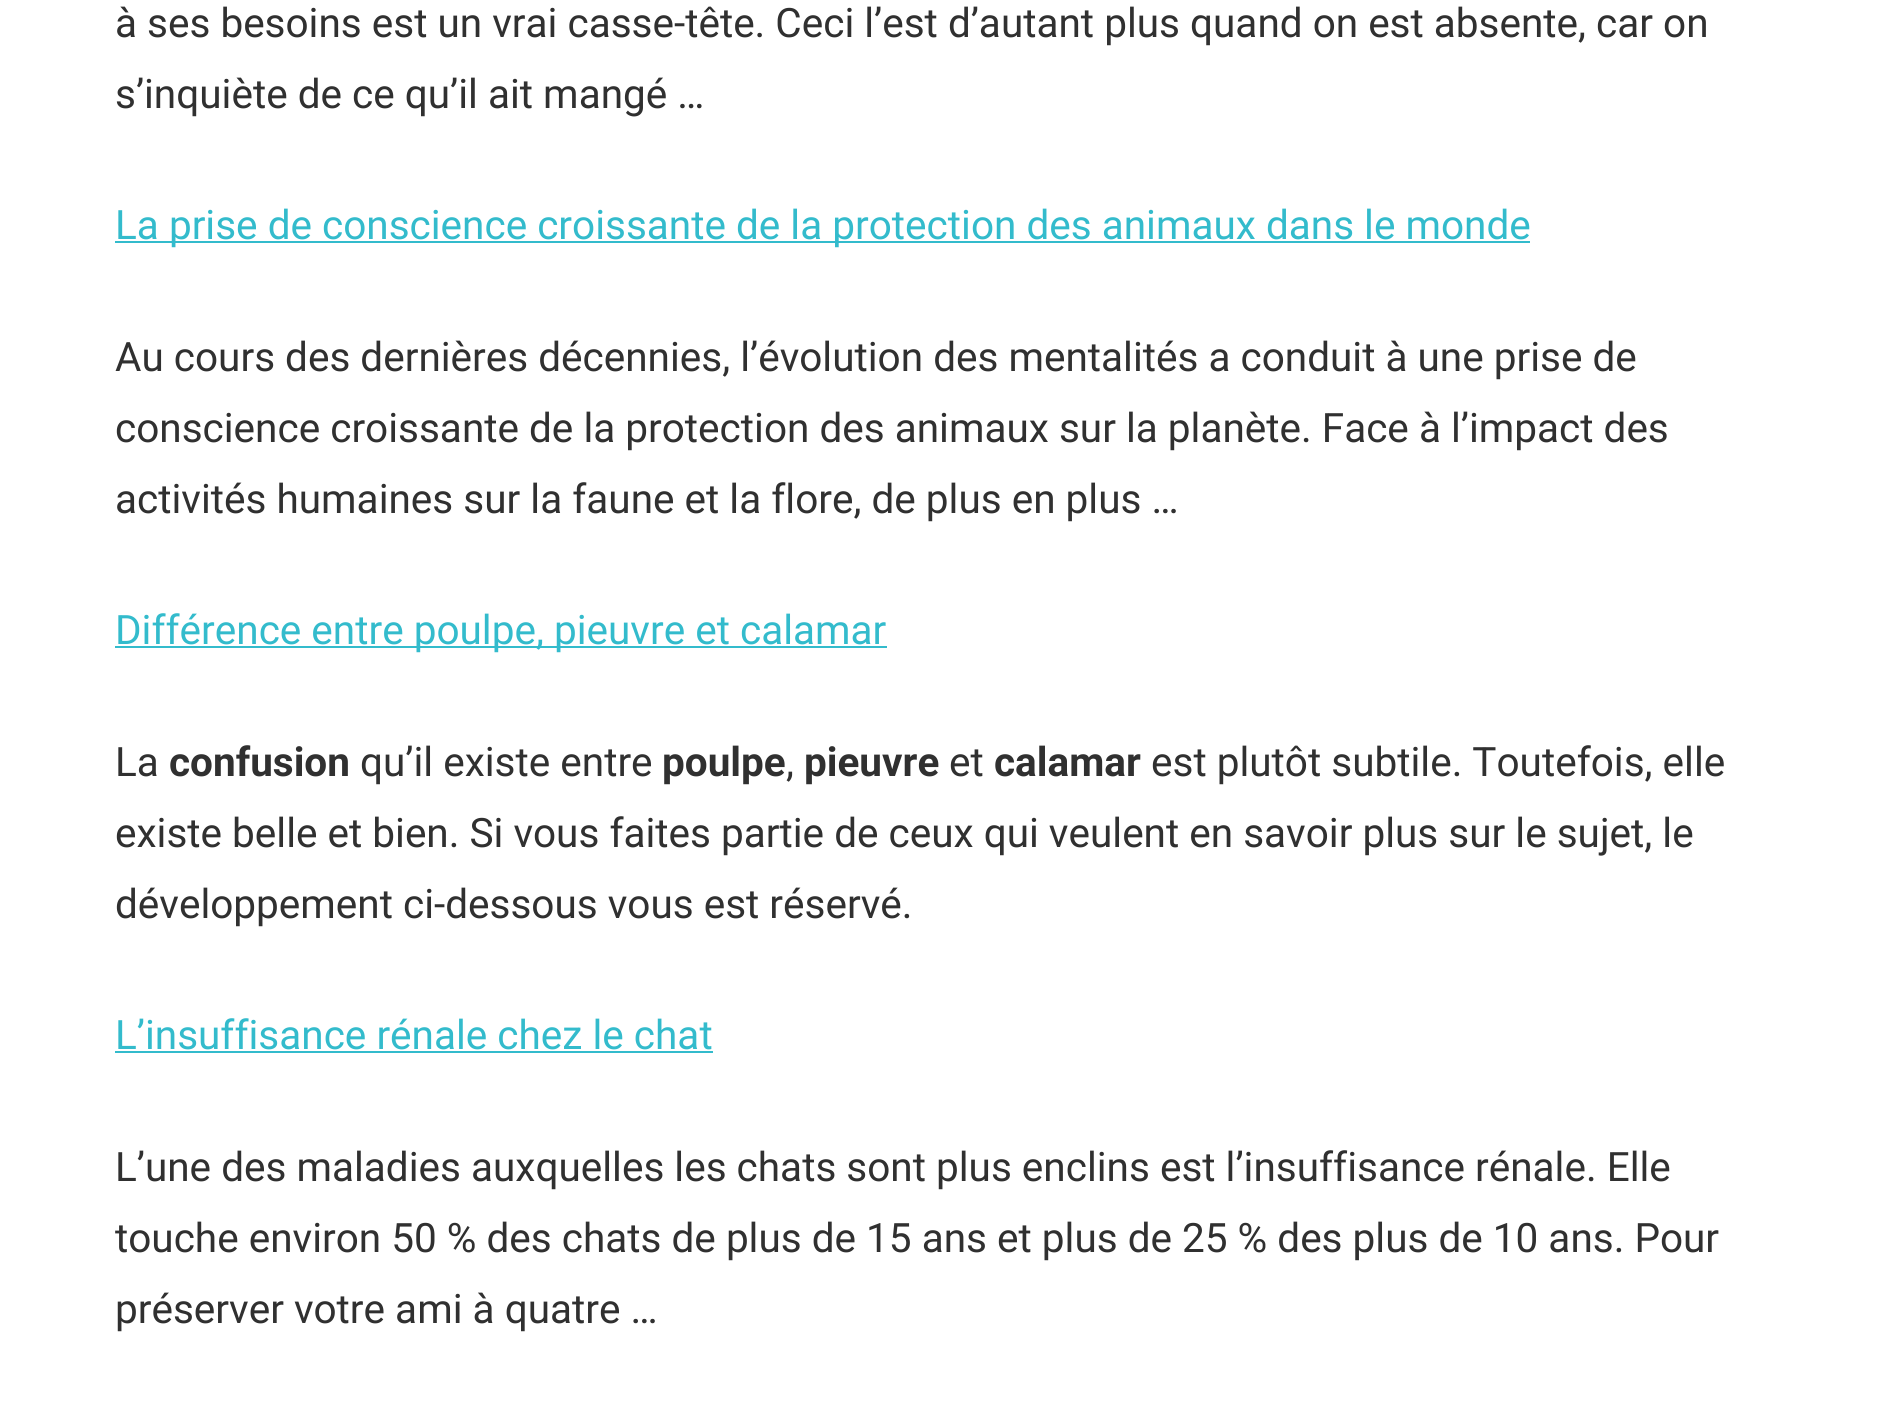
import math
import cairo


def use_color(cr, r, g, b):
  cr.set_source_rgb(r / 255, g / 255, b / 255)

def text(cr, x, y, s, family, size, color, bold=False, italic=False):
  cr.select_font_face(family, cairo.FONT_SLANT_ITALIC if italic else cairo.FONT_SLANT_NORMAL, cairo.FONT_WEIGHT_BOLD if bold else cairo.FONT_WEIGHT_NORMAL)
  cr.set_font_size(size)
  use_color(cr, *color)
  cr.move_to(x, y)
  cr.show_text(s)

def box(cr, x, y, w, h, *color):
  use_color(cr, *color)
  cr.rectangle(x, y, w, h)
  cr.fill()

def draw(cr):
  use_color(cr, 255, 255, 255)
  cr.paint()
  box(cr, 115, 241, 1415, 2, 51, 187, 204)
  box(cr, 115, 646, 772, 2, 51, 187, 204)
  box(cr, 115, 1051, 598, 2, 51, 187, 204)
  text(cr, 115, 37, "à ses besoins est un vrai casse-tête. Ceci l’est d’autant plus quand on est absente, car on", "Roboto", 40.5, (48, 48, 48))
  text(cr, 115, 108, "s’inquiète de ce qu’il ait mangé …", "Roboto", 40.5, (48, 48, 48))
  text(cr, 115, 239, "La prise de conscience croissante de la protection des animaux dans le monde", "Roboto", 40.5, (51, 187, 204))
  text(cr, 115, 371, "Au cours des dernières décennies, l’évolution des mentalités a conduit à une prise de", "Roboto", 40.5, (48, 48, 48))
  text(cr, 115, 442, "conscience croissante de la protection des animaux sur la planète. Face à l’impact des", "Roboto", 40.5, (48, 48, 48))
  text(cr, 115, 513, "activités humaines sur la faune et la flore, de plus en plus …", "Roboto", 40.5, (48, 48, 48))
  text(cr, 115, 644, "Différence entre poulpe, pieuvre et calamar", "Roboto", 40.5, (51, 187, 204))
  text(cr, 115, 776, "La", "Roboto", 40.5, (48, 48, 48))
  text(cr, 169, 776, "confusion", "Roboto", 40.5, (48, 48, 48), bold=True)
  text(cr, 360, 776, "qu’il existe entre", "Roboto", 40.5, (48, 48, 48))
  text(cr, 662, 776, "poulpe", "Roboto", 40.5, (48, 48, 48), bold=True)
  text(cr, 786, 776, ",", "Roboto", 40.5, (48, 48, 48))
  text(cr, 804, 776, "pieuvre", "Roboto", 40.5, (48, 48, 48), bold=True)
  text(cr, 949, 776, "et", "Roboto", 40.5, (48, 48, 48))
  text(cr, 994, 776, "calamar", "Roboto", 40.5, (48, 48, 48), bold=True)
  text(cr, 1151, 776, "est plutôt subtile. Toutefois, elle", "Roboto", 40.5, (48, 48, 48))
  text(cr, 115, 847, "existe belle et bien. Si vous faites partie de ceux qui veulent en savoir plus sur le sujet, le", "Roboto", 40.5, (48, 48, 48))
  text(cr, 115, 918, "développement ci-dessous vous est réservé.", "Roboto", 40.5, (48, 48, 48))
  text(cr, 115, 1049, "L’insuffisance rénale chez le chat", "Roboto", 40.5, (51, 187, 204))
  text(cr, 115, 1181, "L’une des maladies auxquelles les chats sont plus enclins est l’insuffisance rénale. Elle", "Roboto", 40.5, (48, 48, 48))
  text(cr, 115, 1252, "touche environ 50 % des chats de plus de 15 ans et plus de 25 % des plus de 10 ans. Pour", "Roboto", 40.5, (48, 48, 48))
  text(cr, 115, 1323, "préserver votre ami à quatre …", "Roboto", 40.5, (48, 48, 48))


surface = cairo.ImageSurface(cairo.FORMAT_RGB24, 1879, 1405)
cr = cairo.Context(surface)
options = cairo.FontOptions()
options.set_hint_metrics(cairo.HINT_METRICS_OFF)
options.set_hint_style(cairo.HINT_STYLE_NONE)
cr.set_font_options(options)
cr.set_miter_limit(4)
draw(cr)
surface.write_to_png("out.png")
